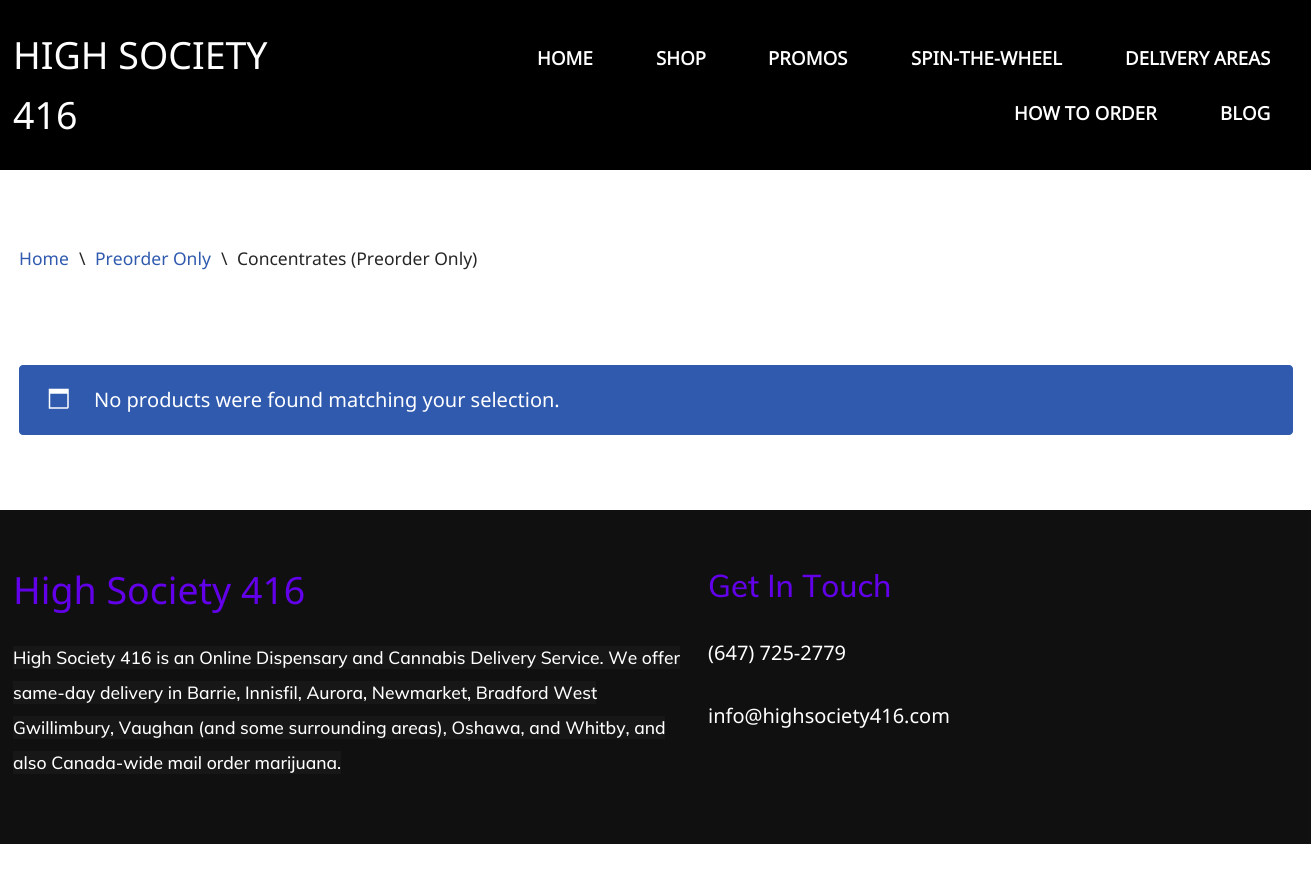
import math
import cairo


def use_color(cr, r, g, b):
  cr.set_source_rgb(r / 255, g / 255, b / 255)

def text(cr, x, y, s, family, size, color, bold=False, italic=False):
  cr.select_font_face(family, cairo.FONT_SLANT_ITALIC if italic else cairo.FONT_SLANT_NORMAL, cairo.FONT_WEIGHT_BOLD if bold else cairo.FONT_WEIGHT_NORMAL)
  cr.set_font_size(size)
  use_color(cr, *color)
  cr.move_to(x, y)
  cr.show_text(s)

def box(cr, x, y, w, h, *color):
  use_color(cr, *color)
  cr.rectangle(x, y, w, h)
  cr.fill()

def round_rect(cr, x, y, w, h, r):
  cr.new_sub_path()
  for i, (u, v) in enumerate([(x + w - r, y + h - r), (x + r, y + h - r), (x + r, y + r), (x + w - r, y + r)]):
    cr.arc(u, v, r, i * math.pi / 2, (i + 1) * math.pi / 2)
  cr.close_path()

def picture(cr, path, x, y, w, h):
  cr.save()
  cr.set_source_surface(cairo.ImageSurface.create_from_png(path), x, y)
  cr.rectangle(x, y, w, h)
  cr.fill()
  cr.restore()

def draw(cr):
  use_color(cr, 255, 255, 255)
  cr.paint()
  box(cr, 0, 0, 1311, 170, 0, 0, 0)
  use_color(cr, 47, 90, 174)
  round_rect(cr, 19, 365, 1274, 70, 4)
  cr.fill()
  picture(cr, "img_01.png", 48, 388, 21, 21)
  box(cr, 0, 510, 1311, 334, 16, 16, 16)
  box(cr, 13, 646, 667, 23, 23, 23, 23)
  box(cr, 13, 681, 583, 23, 23, 23, 23)
  box(cr, 13, 716, 652, 23, 23, 23, 23)
  box(cr, 13, 751, 328, 23, 23, 23, 23)
  text(cr, 13, 69, "HIGH SOCIETY", "Noto Sans", 37.5, (255, 255, 255))
  text(cr, 13, 129, "416", "Noto Sans", 37.5, (255, 255, 255))
  text(cr, 537, 65, "HOME", "Noto Sans", 18.75, (255, 255, 255), bold=True)
  text(cr, 656, 65, "SHOP", "Noto Sans", 18.75, (255, 255, 255), bold=True)
  text(cr, 768, 65, "PROMOS", "Noto Sans", 18.75, (255, 255, 255), bold=True)
  text(cr, 911, 65, "SPIN-THE-WHEEL", "Noto Sans", 18.75, (255, 255, 255), bold=True)
  text(cr, 1125, 65, "DELIVERY AREAS", "Noto Sans", 18.75, (255, 255, 255), bold=True)
  text(cr, 1014, 120, "HOW TO ORDER", "Noto Sans", 18.75, (255, 255, 255), bold=True)
  text(cr, 1220, 120, "BLOG", "Noto Sans", 18.75, (255, 255, 255), bold=True)
  text(cr, 19, 265, "Home", "Noto Sans", 17.5, (47, 90, 174))
  text(cr, 79, 265, "\\", "Noto Sans", 17.5, (39, 38, 38))
  text(cr, 95, 265, "Preorder Only", "Noto Sans", 17.5, (47, 90, 174))
  text(cr, 221, 265, "\\", "Noto Sans", 17.5, (39, 38, 38))
  text(cr, 237, 265, "Concentrates (Preorder Only)", "Noto Sans", 17.5, (39, 38, 38))
  text(cr, 94, 407, "No products were found matching your selection.", "Noto Sans", 20, (255, 255, 255))
  text(cr, 13, 604, "High Society 416", "Noto Sans", 37.5, (98, 0, 234))
  text(cr, 13, 664, "High Society 416 is an Online Dispensary and Cannabis Delivery Service. We offer", "Muli Medium", 17.5, (255, 255, 255))
  text(cr, 13, 699, "same-day delivery in Barrie, Innisfil, Aurora, Newmarket, Bradford West", "Muli Medium", 17.5, (255, 255, 255))
  text(cr, 13, 734, "Gwillimbury, Vaughan (and some surrounding areas), Oshawa, and Whitby, and", "Muli Medium", 17.5, (255, 255, 255))
  text(cr, 13, 769, "also Canada-wide mail order marijuana.", "Muli Medium", 17.5, (255, 255, 255))
  text(cr, 708, 597, "Get In Touch", "Muli Medium", 31.25, (98, 0, 234))
  text(cr, 708, 660, "(647) 725-2779", "Noto Sans", 20, (255, 255, 255))
  text(cr, 708, 723, "info@highsociety416.com", "Noto Sans", 20, (255, 255, 255))


surface = cairo.ImageSurface(cairo.FORMAT_RGB24, 1311, 882)
cr = cairo.Context(surface)
options = cairo.FontOptions()
options.set_hint_metrics(cairo.HINT_METRICS_OFF)
options.set_hint_style(cairo.HINT_STYLE_NONE)
cr.set_font_options(options)
cr.set_miter_limit(4)
draw(cr)
surface.write_to_png("out.png")
